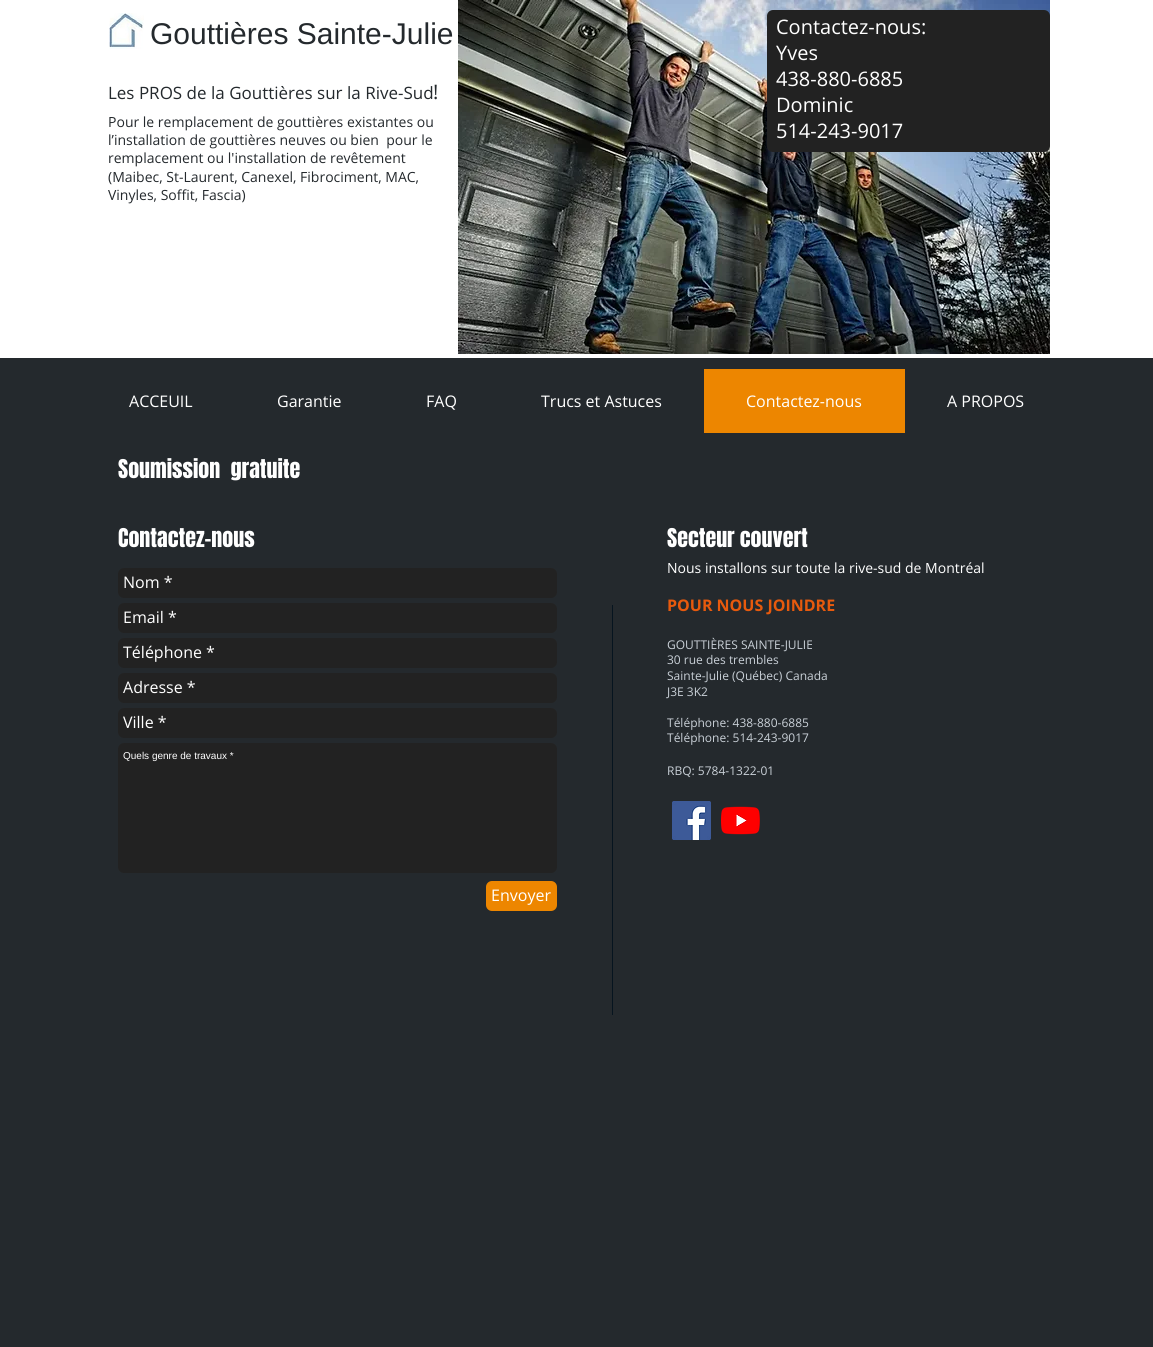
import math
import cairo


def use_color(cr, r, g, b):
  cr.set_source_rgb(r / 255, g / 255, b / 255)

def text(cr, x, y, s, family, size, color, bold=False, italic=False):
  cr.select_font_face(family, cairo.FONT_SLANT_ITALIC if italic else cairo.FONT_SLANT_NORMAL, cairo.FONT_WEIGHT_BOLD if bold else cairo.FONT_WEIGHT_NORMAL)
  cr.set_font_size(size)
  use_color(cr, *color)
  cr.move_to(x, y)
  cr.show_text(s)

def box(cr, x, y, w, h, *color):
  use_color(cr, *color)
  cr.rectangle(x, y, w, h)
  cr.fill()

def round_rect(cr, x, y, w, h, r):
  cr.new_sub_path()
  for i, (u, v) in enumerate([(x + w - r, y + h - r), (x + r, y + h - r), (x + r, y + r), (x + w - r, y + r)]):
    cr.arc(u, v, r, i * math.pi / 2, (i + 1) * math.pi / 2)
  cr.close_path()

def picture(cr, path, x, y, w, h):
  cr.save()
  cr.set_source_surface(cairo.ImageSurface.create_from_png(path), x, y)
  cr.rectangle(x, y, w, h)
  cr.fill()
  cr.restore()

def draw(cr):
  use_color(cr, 36, 41, 45)
  cr.paint()
  box(cr, 0, 0, 1153, 358, 255, 255, 255)
  picture(cr, "img_01.png", 109, 13, 35, 36)
  picture(cr, "img_02.png", 458, 0, 592, 354)
  use_color(cr, 34, 34, 34)
  round_rect(cr, 767, 10, 283, 142, 6)
  cr.fill()
  box(cr, 704, 369, 201, 64, 237, 134, 0)
  use_color(cr, 34, 34, 34)
  round_rect(cr, 118, 568, 439, 30, 6)
  cr.fill()
  round_rect(cr, 118, 603, 439, 30, 6)
  cr.fill()
  round_rect(cr, 118, 638, 439, 30, 6)
  cr.fill()
  round_rect(cr, 118, 673, 439, 30, 6)
  cr.fill()
  round_rect(cr, 118, 708, 439, 30, 6)
  cr.fill()
  round_rect(cr, 118, 743, 439, 130, 6)
  cr.fill()
  use_color(cr, 237, 134, 0)
  round_rect(cr, 486, 881, 71, 30, 6)
  cr.fill()
  box(cr, 612, 605, 1, 410, 6, 20, 31)
  picture(cr, "img_03.png", 672, 801, 39, 39)
  picture(cr, "img_04.png", 721, 806, 39, 29)
  text(cr, 150, 44, "Gouttières Sainte-Julie", "Liberation Sans", 30, (36, 41, 45))
  text(cr, 776, 34, "Contactez-nous:", "Open Sans", 20, (255, 255, 255))
  text(cr, 776, 60, "Yves", "Open Sans", 20, (255, 255, 255))
  text(cr, 776, 86, "438-880-6885", "Open Sans", 20, (255, 255, 255))
  text(cr, 776, 112, "Dominic", "Open Sans", 20, (255, 255, 255))
  text(cr, 776, 138, "514-243-9017", "Open Sans", 20, (255, 255, 255))
  text(cr, 108, 99, "Les PROS de la Gouttières sur la Rive-Sud", "Open Sans", 17, (36, 41, 45))
  text(cr, 433, 99, "!", "Open Sans", 20, (36, 41, 45))
  text(cr, 108, 127, "Pour le remplacement de gouttières existantes ou", "Open Sans", 14, (36, 41, 45))
  text(cr, 108, 145, "l’installation de gouttières neuves ou bien  pour le", "Open Sans", 14, (36, 41, 45))
  text(cr, 108, 163, "remplacement ou l'installation de revêtement", "Open Sans", 14, (36, 41, 45))
  text(cr, 108, 182, "(Maibec, St-Laurent, Canexel, Fibrociment, MAC,", "Open Sans", 14, (36, 41, 45))
  text(cr, 108, 200, "Vinyles, Soffit, Fascia)", "Open Sans", 14, (36, 41, 45))
  text(cr, 129, 407, "ACCEUIL", "Open Sans", 16, (255, 255, 255))
  text(cr, 277, 407, "Garantie", "Open Sans", 16, (255, 255, 255))
  text(cr, 426, 407, "FAQ", "Open Sans", 16, (255, 255, 255))
  text(cr, 541, 407, "Trucs et Astuces", "Open Sans", 16, (255, 255, 255))
  text(cr, 746, 407, "Contactez-nous", "Open Sans", 16, (255, 255, 255))
  text(cr, 947, 407, "A PROPOS", "Open Sans", 16, (255, 255, 255))
  text(cr, 118, 478, "Soumission  gratuite", "Anton", 22, (255, 255, 255))
  text(cr, 118, 547, "Contactez-nous", "Anton", 22, (255, 255, 255))
  text(cr, 667, 547, "Secteur couvert", "Anton", 22, (255, 255, 255))
  text(cr, 123, 588, "Nom *", "Open Sans", 16, (255, 255, 255))
  text(cr, 123, 623, "Email *", "Open Sans", 16, (255, 255, 255))
  text(cr, 123, 658, "Téléphone *", "Open Sans", 16, (255, 255, 255))
  text(cr, 123, 693, "Adresse *", "Open Sans", 16, (255, 255, 255))
  text(cr, 123, 728, "Ville *", "Open Sans", 16, (255, 255, 255))
  text(cr, 123, 759, "Quels genre de travaux *", "Liberation Sans", 10, (255, 255, 255))
  text(cr, 491, 901, "Envoyer", "Open Sans", 16, (255, 255, 255))
  text(cr, 667, 573, "Nous installons sur toute la rive-sud de Montréal", "Open Sans", 14, (255, 255, 255))
  text(cr, 667, 611, "POUR NOUS JOINDRE", "Open Sans", 16, (232, 90, 13), bold=True)
  text(cr, 667, 649, "GOUTTIÈRES SAINTE-JULIE", "Open Sans", 12, (201, 208, 215))
  text(cr, 667, 664, "30 rue des trembles", "Open Sans", 12, (201, 208, 215))
  text(cr, 667, 680, "Sainte-Julie (Québec) Canada", "Open Sans", 12, (201, 208, 215))
  text(cr, 667, 696, "J3E 3K2", "Open Sans", 12, (201, 208, 215))
  text(cr, 667, 727, "Téléphone: 438-880-6885", "Open Sans", 12, (201, 208, 215))
  text(cr, 667, 742, "Téléphone: 514-243-9017", "Open Sans", 12, (201, 208, 215))
  text(cr, 667, 775, "RBQ: 5784-1322-01", "Open Sans", 12, (201, 208, 215))


surface = cairo.ImageSurface(cairo.FORMAT_RGB24, 1153, 1347)
cr = cairo.Context(surface)
options = cairo.FontOptions()
options.set_hint_metrics(cairo.HINT_METRICS_OFF)
options.set_hint_style(cairo.HINT_STYLE_NONE)
cr.set_font_options(options)
cr.set_miter_limit(4)
draw(cr)
surface.write_to_png("out.png")
